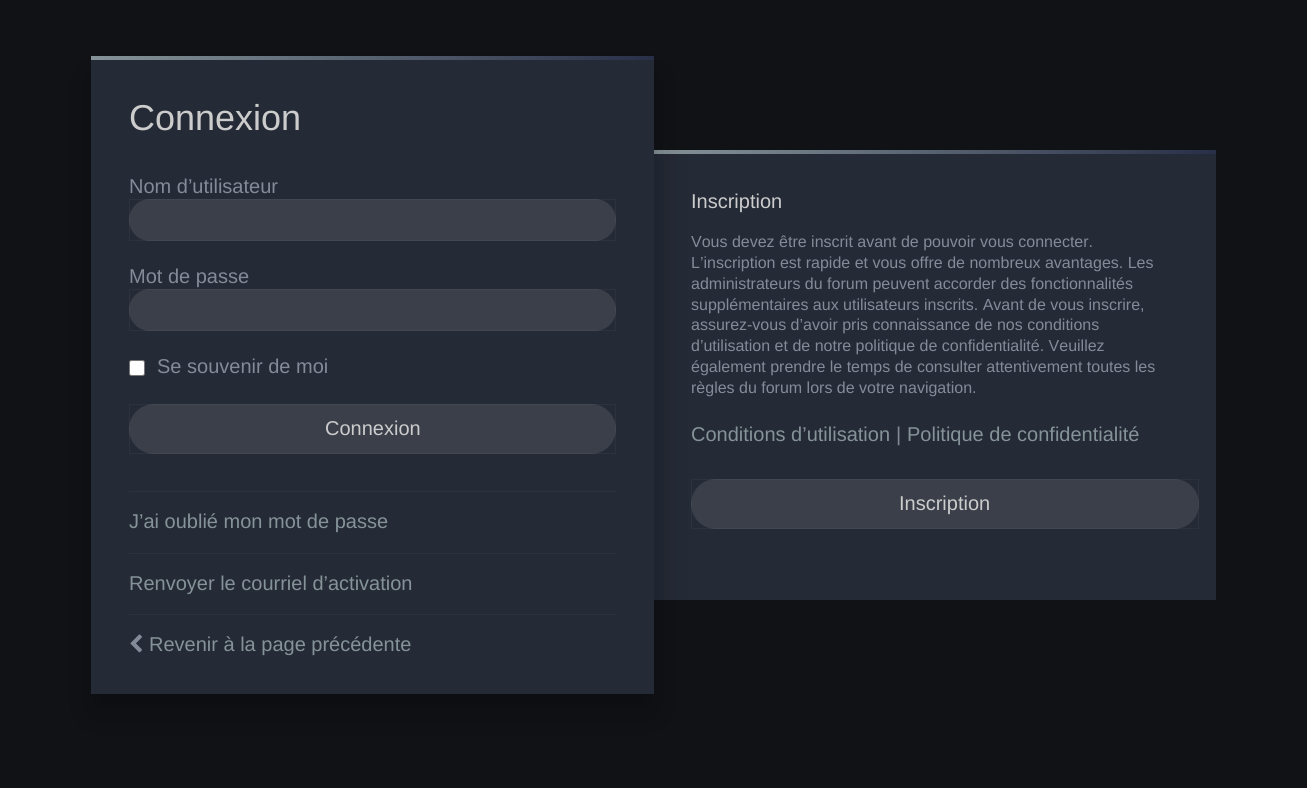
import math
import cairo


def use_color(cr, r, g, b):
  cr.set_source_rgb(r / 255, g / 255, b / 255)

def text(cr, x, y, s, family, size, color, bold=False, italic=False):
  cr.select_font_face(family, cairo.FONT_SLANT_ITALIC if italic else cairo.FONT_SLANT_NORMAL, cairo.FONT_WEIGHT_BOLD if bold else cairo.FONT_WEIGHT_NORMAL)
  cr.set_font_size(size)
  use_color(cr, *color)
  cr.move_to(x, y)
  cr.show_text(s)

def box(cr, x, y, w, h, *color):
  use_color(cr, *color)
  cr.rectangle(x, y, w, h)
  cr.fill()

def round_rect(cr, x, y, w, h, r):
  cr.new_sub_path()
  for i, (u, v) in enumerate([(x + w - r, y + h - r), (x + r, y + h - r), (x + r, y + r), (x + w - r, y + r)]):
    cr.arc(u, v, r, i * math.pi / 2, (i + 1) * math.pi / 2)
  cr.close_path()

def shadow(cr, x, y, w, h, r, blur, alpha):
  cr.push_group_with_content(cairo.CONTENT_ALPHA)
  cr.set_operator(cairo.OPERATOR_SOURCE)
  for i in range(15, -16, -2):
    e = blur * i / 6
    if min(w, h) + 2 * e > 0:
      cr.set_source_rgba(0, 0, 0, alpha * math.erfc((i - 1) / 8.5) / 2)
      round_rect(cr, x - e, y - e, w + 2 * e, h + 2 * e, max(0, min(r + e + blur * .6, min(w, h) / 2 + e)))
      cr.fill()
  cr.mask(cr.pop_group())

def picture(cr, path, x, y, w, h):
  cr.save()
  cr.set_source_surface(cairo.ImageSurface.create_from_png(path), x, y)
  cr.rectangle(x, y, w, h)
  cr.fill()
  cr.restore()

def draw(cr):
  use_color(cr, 16, 18, 22)
  cr.paint()
  box(cr, 654, 154, 562, 446, 36, 42, 54)
  gradient = cairo.LinearGradient(654, 152, 1216, 152)
  gradient.add_color_stop_rgba(0, 0.522, 0.576, 0.596, 1)
  gradient.add_color_stop_rgba(1, 0.157, 0.188, 0.282, 1)
  cr.set_source(gradient)
  cr.rectangle(654, 150, 562, 4)
  cr.fill()
  use_color(cr, 58, 63, 74)
  round_rect(cr, 691, 479, 508, 50, 25)
  cr.fill()
  cr.rectangle(691.5, 479.5, 507, 49)
  cr.set_source_rgba(1, 1, 1, 0.04)
  cr.set_line_width(1)
  cr.stroke()
  use_color(cr, 0, 0, 0)
  shadow(cr, 91, 75, 563, 638, 0, 19, 0.27)
  box(cr, 91, 60, 563, 634, 36, 42, 54)
  gradient = cairo.LinearGradient(91, 58, 654, 58)
  gradient.add_color_stop_rgba(0, 0.522, 0.576, 0.596, 1)
  gradient.add_color_stop_rgba(1, 0.157, 0.188, 0.282, 1)
  cr.set_source(gradient)
  cr.rectangle(91, 56, 563, 4)
  cr.fill()
  use_color(cr, 58, 63, 74)
  round_rect(cr, 129, 199, 487, 42, 21)
  cr.fill()
  cr.rectangle(129.5, 199.5, 486, 41)
  cr.set_source_rgba(1, 1, 1, 0.04)
  cr.stroke()
  use_color(cr, 58, 63, 74)
  round_rect(cr, 129, 289, 487, 42, 21)
  cr.fill()
  cr.rectangle(129.5, 289.5, 486, 41)
  cr.set_source_rgba(1, 1, 1, 0.04)
  cr.stroke()
  use_color(cr, 255, 255, 255)
  round_rect(cr, 129.5, 360.5, 15, 15, 2)
  cr.fill_preserve()
  use_color(cr, 118, 118, 118)
  cr.stroke()
  use_color(cr, 58, 63, 74)
  round_rect(cr, 129, 404, 487, 50, 25)
  cr.fill()
  cr.rectangle(129.5, 404.5, 486, 49)
  cr.set_source_rgba(1, 1, 1, 0.04)
  cr.stroke()
  box(cr, 129, 491, 487, 1, 45, 51, 62)
  box(cr, 129, 553, 487, 1, 45, 51, 62)
  box(cr, 129, 614, 487, 1, 45, 51, 62)
  picture(cr, "img_01.png", 130, 634, 12, 19)
  text(cr, 129, 130, "Connexion", "Liberation Sans", 36, (204, 204, 204))
  text(cr, 129, 193, "Nom d’utilisateur", "Liberation Sans", 20, (131, 139, 152))
  text(cr, 129, 283, "Mot de passe", "Liberation Sans", 20, (131, 139, 152))
  text(cr, 157, 373, "Se souvenir de moi", "Liberation Sans", 20, (131, 139, 152))
  text(cr, 325, 435, "Connexion", "Liberation Sans", 20, (204, 204, 204))
  text(cr, 129, 528, "J’ai oublié mon mot de passe", "Liberation Sans", 20, (133, 147, 152))
  text(cr, 129, 590, "Renvoyer le courriel d’activation", "Liberation Sans", 20, (133, 147, 152))
  text(cr, 149, 651, "Revenir à la page précédente", "Liberation Sans", 20, (133, 147, 152))
  text(cr, 691, 208, "Inscription", "Liberation Sans", 20, (204, 204, 204))
  text(cr, 691, 247, "Vous devez être inscrit avant de pouvoir vous connecter.", "Liberation Sans", 16, (131, 139, 152))
  text(cr, 691, 268, "L’inscription est rapide et vous offre de nombreux avantages. Les", "Liberation Sans", 16, (131, 139, 152))
  text(cr, 691, 289, "administrateurs du forum peuvent accorder des fonctionnalités", "Liberation Sans", 16, (131, 139, 152))
  text(cr, 691, 310, "supplémentaires aux utilisateurs inscrits. Avant de vous inscrire,", "Liberation Sans", 16, (131, 139, 152))
  text(cr, 691, 330, "assurez-vous d’avoir pris connaissance de nos conditions", "Liberation Sans", 16, (131, 139, 152))
  text(cr, 691, 351, "d’utilisation et de notre politique de confidentialité. Veuillez", "Liberation Sans", 16, (131, 139, 152))
  text(cr, 691, 372, "également prendre le temps de consulter attentivement toutes les", "Liberation Sans", 16, (131, 139, 152))
  text(cr, 691, 393, "règles du forum lors de votre navigation.", "Liberation Sans", 16, (131, 139, 152))
  text(cr, 691, 441, "Conditions d’utilisation", "Liberation Sans", 20, (133, 147, 152))
  text(cr, 896, 441, "|", "Liberation Sans", 20, (131, 139, 152))
  text(cr, 907, 441, "Politique de confidentialité", "Liberation Sans", 20, (133, 147, 152))
  text(cr, 899, 510, "Inscription", "Liberation Sans", 20, (204, 204, 204))


surface = cairo.ImageSurface(cairo.FORMAT_RGB24, 1307, 788)
cr = cairo.Context(surface)
options = cairo.FontOptions()
options.set_hint_metrics(cairo.HINT_METRICS_OFF)
options.set_hint_style(cairo.HINT_STYLE_NONE)
cr.set_font_options(options)
cr.set_miter_limit(4)
draw(cr)
surface.write_to_png("out.png")
